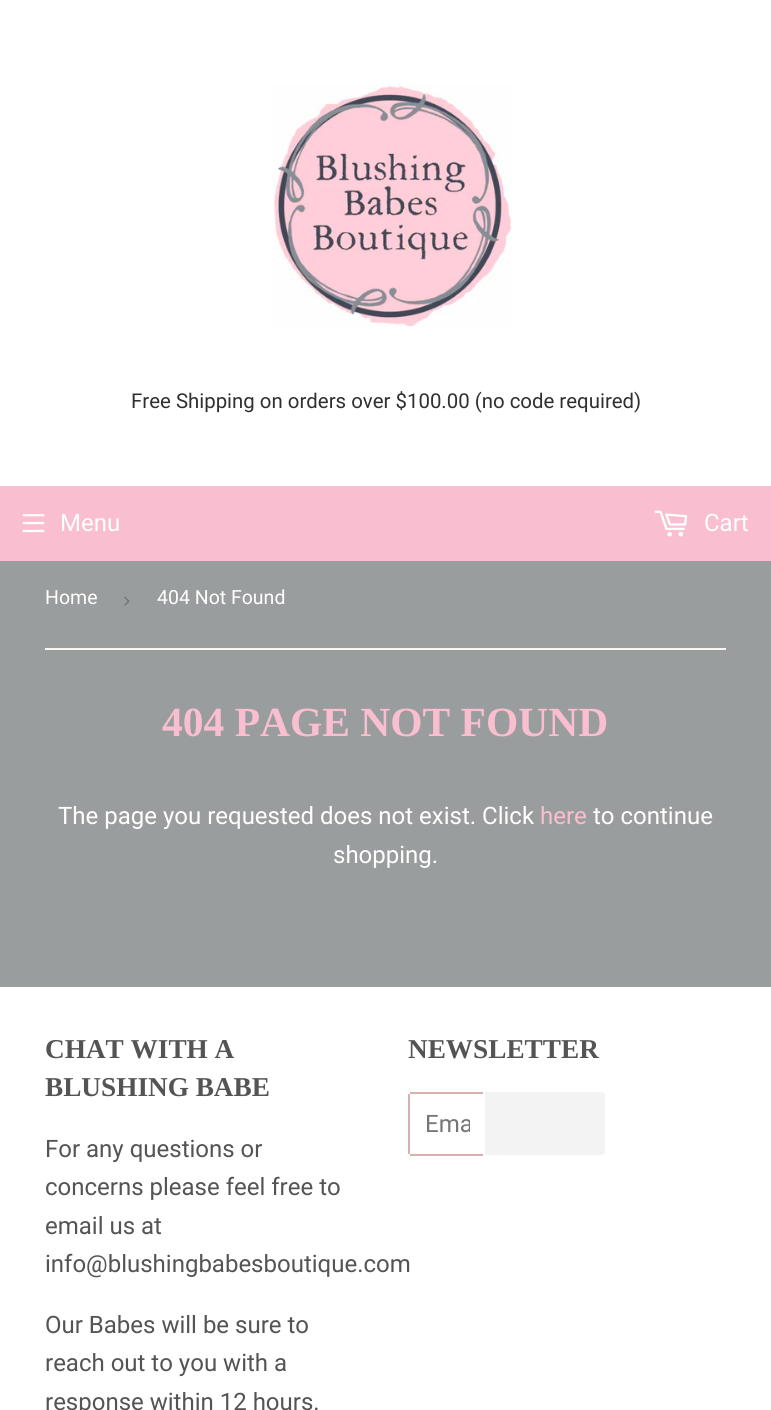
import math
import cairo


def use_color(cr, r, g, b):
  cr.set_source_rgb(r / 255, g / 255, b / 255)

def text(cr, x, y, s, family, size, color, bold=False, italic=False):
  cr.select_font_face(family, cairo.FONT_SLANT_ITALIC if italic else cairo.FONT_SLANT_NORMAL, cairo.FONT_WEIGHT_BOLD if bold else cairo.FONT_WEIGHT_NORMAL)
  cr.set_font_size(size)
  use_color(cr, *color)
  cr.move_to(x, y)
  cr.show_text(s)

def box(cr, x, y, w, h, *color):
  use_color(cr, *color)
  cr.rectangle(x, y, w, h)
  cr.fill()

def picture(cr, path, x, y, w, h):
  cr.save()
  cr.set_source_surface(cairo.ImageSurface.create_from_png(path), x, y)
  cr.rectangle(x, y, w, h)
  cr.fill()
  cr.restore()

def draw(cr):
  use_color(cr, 154, 157, 157)
  cr.paint()
  box(cr, 0, 0, 771, 486, 255, 255, 255)
  picture(cr, "img_01.png", 272, 84, 240, 243)
  box(cr, 0, 486, 771, 75, 249, 190, 208)
  picture(cr, "img_02.png", 22, 514, 23, 19)
  picture(cr, "img_03.png", 654, 510, 34, 27)
  box(cr, 45, 648, 681, 2, 251, 246, 246)
  box(cr, 0, 987, 771, 423, 255, 255, 255)
  box(cr, 410, 1092, 73, 2, 220, 175, 175)
  box(cr, 410, 1154, 73, 2, 220, 175, 175)
  box(cr, 408, 1094, 2, 60, 220, 175, 175)
  use_color(cr, 243, 243, 243)
  cr.new_path()
  cr.move_to(485, 1092)
  cr.line_to(602, 1092)
  cr.curve_to(603.5, 1092, 605, 1093.5, 605, 1095)
  cr.line_to(605, 1152)
  cr.curve_to(605, 1153.5, 603.5, 1155, 602, 1155)
  cr.line_to(485, 1155)
  cr.close_path()
  cr.fill()
  text(cr, 131, 408, "Free Shipping on orders over $100.00 (no code required)", "Roboto", 20.4, (49, 48, 48))
  text(cr, 60, 531, "Menu", "Roboto", 24, (255, 255, 255))
  text(cr, 704, 531, "Cart", "Roboto", 24, (255, 255, 255))
  text(cr, 45, 604, "Home", "Roboto", 19.5, (255, 255, 255))
  text(cr, 123, 607, "›", "Liberation Sans", 22, (118, 118, 118))
  text(cr, 157, 604, "404 Not Found", "Roboto", 19.5, (255, 255, 255))
  text(cr, 162, 736, "404 PAGE NOT FOUND", "Liberation Serif", 41.5, (249, 190, 208), bold=True)
  text(cr, 58, 824, "The page you requested does not exist. Click", "Roboto", 24, (255, 255, 255))
  text(cr, 540, 824, "here", "Roboto", 24, (249, 190, 208))
  text(cr, 593, 824, "to continue", "Roboto", 24, (255, 255, 255))
  text(cr, 333, 863, "shopping.", "Roboto", 24, (255, 255, 255))
  text(cr, 45, 1058, "CHAT WITH A", "Liberation Serif", 27.25, (84, 84, 84), bold=True)
  text(cr, 45, 1096, "BLUSHING BABE", "Liberation Serif", 27.25, (84, 84, 84), bold=True)
  text(cr, 45, 1157, "For any questions or", "Roboto", 24, (84, 84, 84))
  text(cr, 45, 1195, "concerns please feel free to", "Roboto", 24, (84, 84, 84))
  text(cr, 45, 1234, "email us at", "Roboto", 24, (84, 84, 84))
  text(cr, 45, 1272, "info@blushingbabesboutique.com", "Roboto", 24, (84, 84, 84))
  text(cr, 45, 1333, "Our Babes will be sure to", "Roboto", 24, (84, 84, 84))
  text(cr, 45, 1371, "reach out to you with a", "Roboto", 24, (84, 84, 84))
  text(cr, 45, 1410, "response within 12 hours.", "Roboto", 24, (84, 84, 84))
  text(cr, 408, 1058, "NEWSLETTER", "Liberation Serif", 27.25, (84, 84, 84), bold=True)
  cr.save()
  cr.rectangle(425, 1109, 45, 28)
  cr.clip()
  text(cr, 425, 1132, "Ema", "Roboto", 24, (118, 118, 118))
  cr.restore()


surface = cairo.ImageSurface(cairo.FORMAT_RGB24, 771, 1410)
cr = cairo.Context(surface)
options = cairo.FontOptions()
options.set_hint_metrics(cairo.HINT_METRICS_OFF)
options.set_hint_style(cairo.HINT_STYLE_NONE)
cr.set_font_options(options)
cr.set_miter_limit(4)
draw(cr)
surface.write_to_png("out.png")
